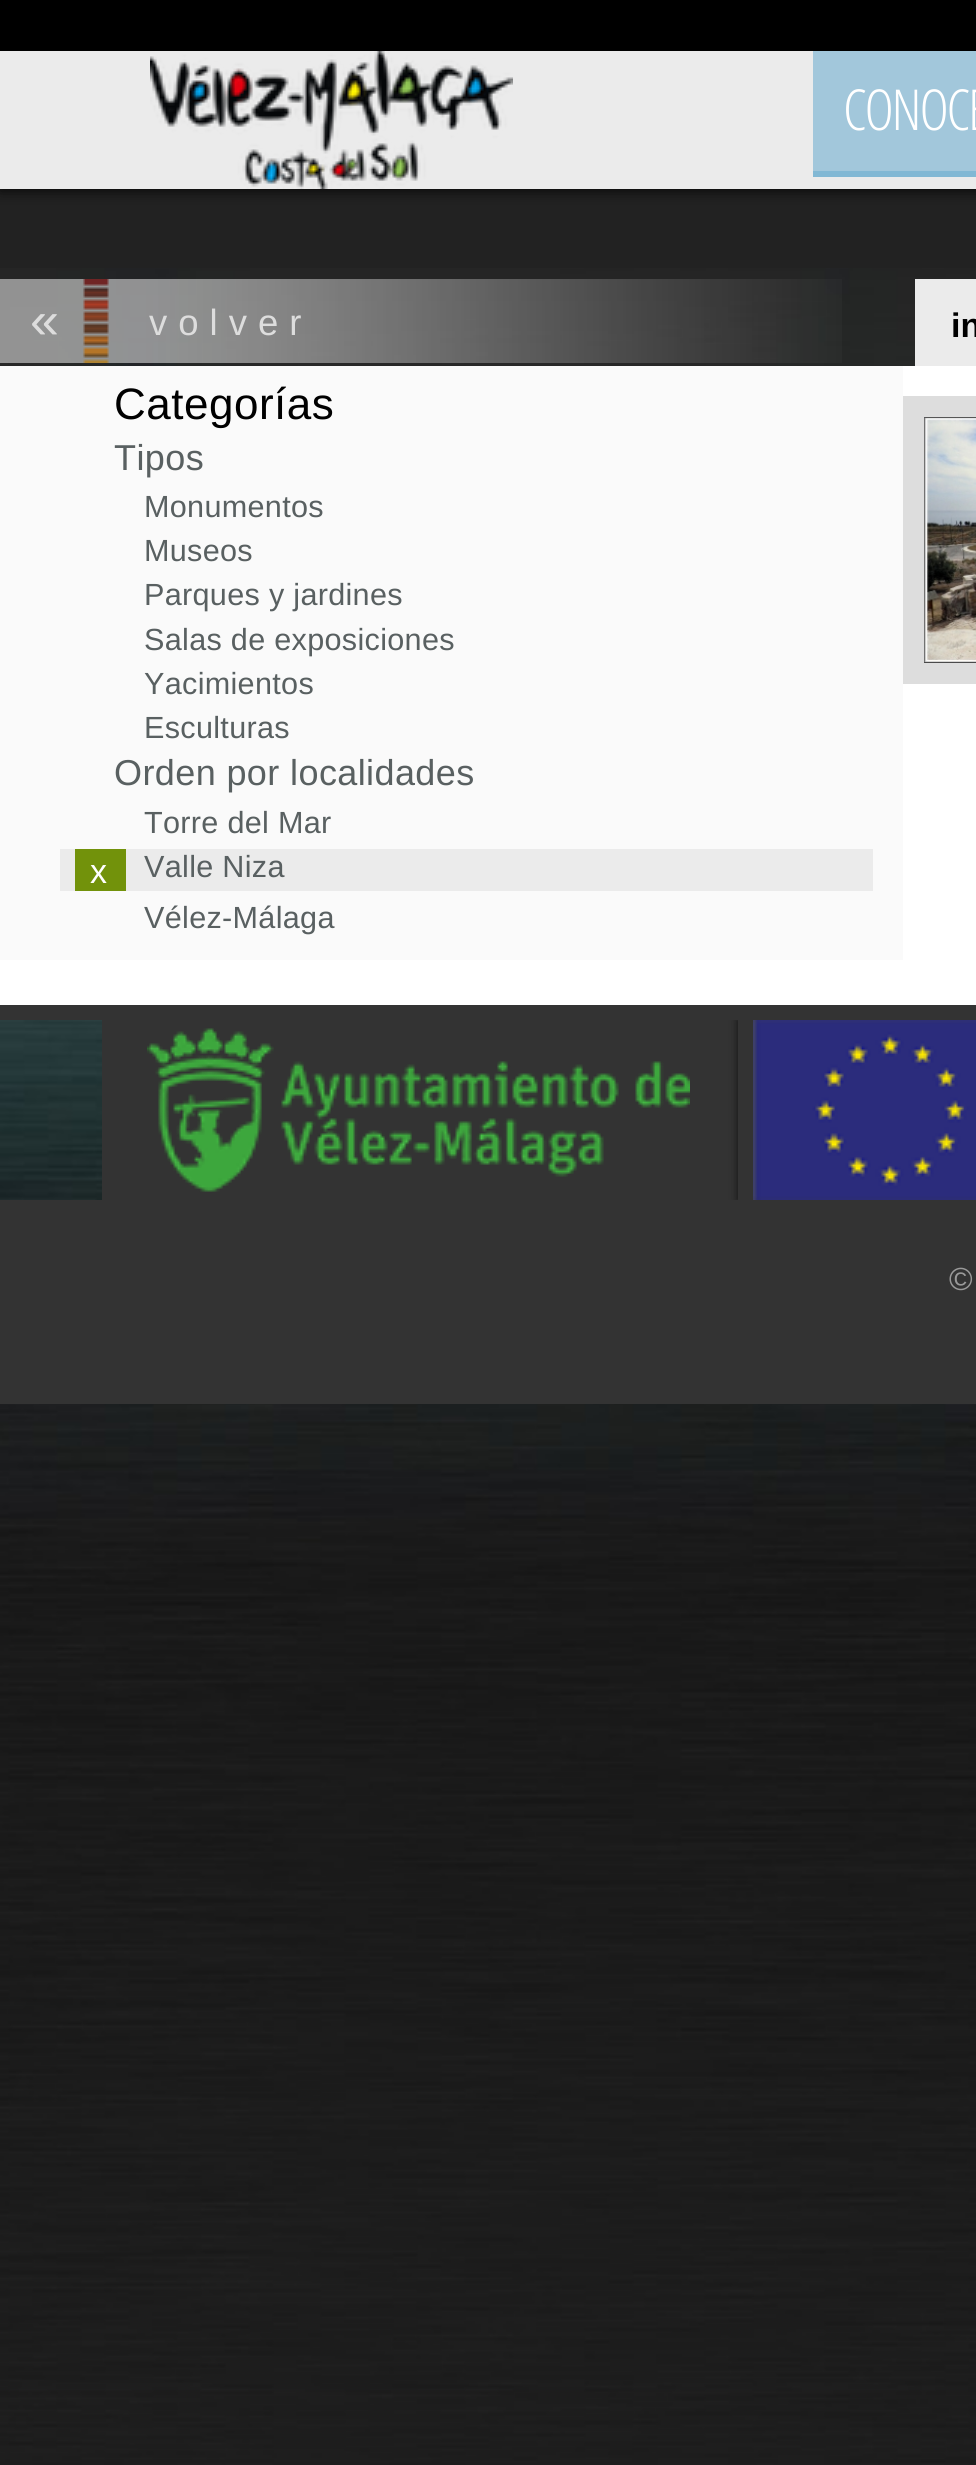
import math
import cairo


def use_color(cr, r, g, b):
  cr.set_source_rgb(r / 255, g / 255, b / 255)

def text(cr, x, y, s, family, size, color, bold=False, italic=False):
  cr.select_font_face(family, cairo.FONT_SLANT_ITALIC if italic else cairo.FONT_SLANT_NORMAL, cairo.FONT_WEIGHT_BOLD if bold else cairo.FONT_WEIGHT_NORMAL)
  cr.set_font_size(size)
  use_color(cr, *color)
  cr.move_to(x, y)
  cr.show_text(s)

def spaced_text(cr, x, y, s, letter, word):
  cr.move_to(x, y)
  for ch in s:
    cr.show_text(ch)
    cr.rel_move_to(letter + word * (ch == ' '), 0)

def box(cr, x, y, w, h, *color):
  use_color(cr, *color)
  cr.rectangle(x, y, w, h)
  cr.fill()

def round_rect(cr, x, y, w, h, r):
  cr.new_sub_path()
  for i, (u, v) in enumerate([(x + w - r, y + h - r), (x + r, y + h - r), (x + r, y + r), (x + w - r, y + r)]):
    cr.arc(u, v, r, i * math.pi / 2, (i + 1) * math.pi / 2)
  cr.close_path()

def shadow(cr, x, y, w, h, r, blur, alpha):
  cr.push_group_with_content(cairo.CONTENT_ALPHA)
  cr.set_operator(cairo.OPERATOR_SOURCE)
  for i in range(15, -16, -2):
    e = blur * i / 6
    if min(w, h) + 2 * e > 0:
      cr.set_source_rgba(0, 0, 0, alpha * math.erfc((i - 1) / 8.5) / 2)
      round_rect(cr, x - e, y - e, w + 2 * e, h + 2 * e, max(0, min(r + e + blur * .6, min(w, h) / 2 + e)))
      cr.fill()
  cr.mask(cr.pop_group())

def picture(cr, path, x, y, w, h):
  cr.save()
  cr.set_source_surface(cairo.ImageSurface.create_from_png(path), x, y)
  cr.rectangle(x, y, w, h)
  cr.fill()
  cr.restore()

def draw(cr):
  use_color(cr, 34, 34, 34)
  cr.paint()
  picture(cr, "img_01.png", 0, 268, 976, 2197)
  use_color(cr, 0, 0, 0)
  shadow(cr, 0, 0, 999, 189, 0, 7.5, 1)
  box(cr, 0, 0, 976, 51, 0, 0, 0)
  box(cr, 0, 51, 976, 138, 235, 235, 235)
  picture(cr, "img_02.png", 150, 51, 363, 138)
  box(cr, 813, 51, 163, 120, 162, 199, 219)
  box(cr, 813, 171, 163, 6, 130, 184, 212)
  picture(cr, "img_03.png", 0, 279, 842, 84)
  box(cr, 0, 366, 976, 639, 255, 255, 255)
  box(cr, 0, 366, 903, 594, 250, 250, 250)
  box(cr, 60, 849, 813, 42, 235, 235, 235)
  box(cr, 75, 849, 51, 42, 114, 146, 11)
  cr.rectangle(913.5, 406.5, 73, 267)
  use_color(cr, 221, 221, 221)
  cr.set_line_width(21)
  cr.stroke()
  picture(cr, "img_04.png", 924, 417, 52, 246)
  box(cr, 0, 1005, 976, 399, 51, 51, 51)
  picture(cr, "img_05.png", 0, 1020, 102, 180)
  picture(cr, "img_06.png", 147, 1028, 543, 164)
  cr.save()
  cr.rectangle(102, 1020, 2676, 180)
  cr.clip()
  use_color(cr, 17, 17, 17)
  shadow(cr, 738, 1020, 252, 180, 0, 4.5, 1)
  cr.restore()
  box(cr, 738, 1020, 238, 180, 51, 51, 51)
  picture(cr, "img_07.png", 753, 1020, 223, 180)
  box(cr, 915, 279, 61, 87, 235, 235, 235)
  cr.select_font_face("Open Sans Condensed Light")
  cr.set_font_size(56.5)
  use_color(cr, 255, 255, 255)
  spaced_text(cr, 843, 130, "CONOCE", -2.25, 0)
  text(cr, 30, 338, "«", "Liberation Sans", 52, (221, 221, 221))
  cr.set_font_size(36.5)
  spaced_text(cr, 149, 335, "volver", 11, 0)
  cr.set_font_size(44)
  use_color(cr, 0, 0, 0)
  spaced_text(cr, 114, 419, "Categorías", 0.5, 0)
  cr.set_font_size(36)
  use_color(cr, 89, 96, 97)
  spaced_text(cr, 114, 470, "Tipos", 0.4, 0)
  cr.set_font_size(30.6)
  spaced_text(cr, 144, 517, "Monumentos", 0.3, 0)
  spaced_text(cr, 144, 561, "Museos", 0.3, 0)
  spaced_text(cr, 144, 605, "Parques y jardines", 0.3, 0)
  spaced_text(cr, 144, 650, "Salas de exposiciones", 0.3, 0)
  spaced_text(cr, 144, 694, "Yacimientos", 0.3, 0)
  spaced_text(cr, 144, 738, "Esculturas", 0.3, 0)
  cr.set_font_size(36)
  spaced_text(cr, 114, 785, "Orden por localidades", 0.4, 0)
  cr.set_font_size(30.6)
  spaced_text(cr, 144, 833, "Torre del Mar", 0.3, 0)
  text(cr, 90, 883, "x", "Liberation Sans", 34, (255, 255, 255))
  cr.set_font_size(30.6)
  use_color(cr, 89, 96, 97)
  spaced_text(cr, 144, 877, "Valle Niza", 0.3, 0)
  spaced_text(cr, 144, 928, "Vélez-Málaga", 0.3, 0)
  text(cr, 949, 1290, "©", "Liberation Sans", 32, (153, 153, 153))
  text(cr, 951, 337, "in", "Liberation Sans", 34, (0, 0, 0), bold=True)


surface = cairo.ImageSurface(cairo.FORMAT_RGB24, 976, 2465)
cr = cairo.Context(surface)
options = cairo.FontOptions()
options.set_hint_metrics(cairo.HINT_METRICS_OFF)
options.set_hint_style(cairo.HINT_STYLE_NONE)
cr.set_font_options(options)
cr.set_miter_limit(4)
draw(cr)
surface.write_to_png("out.png")
